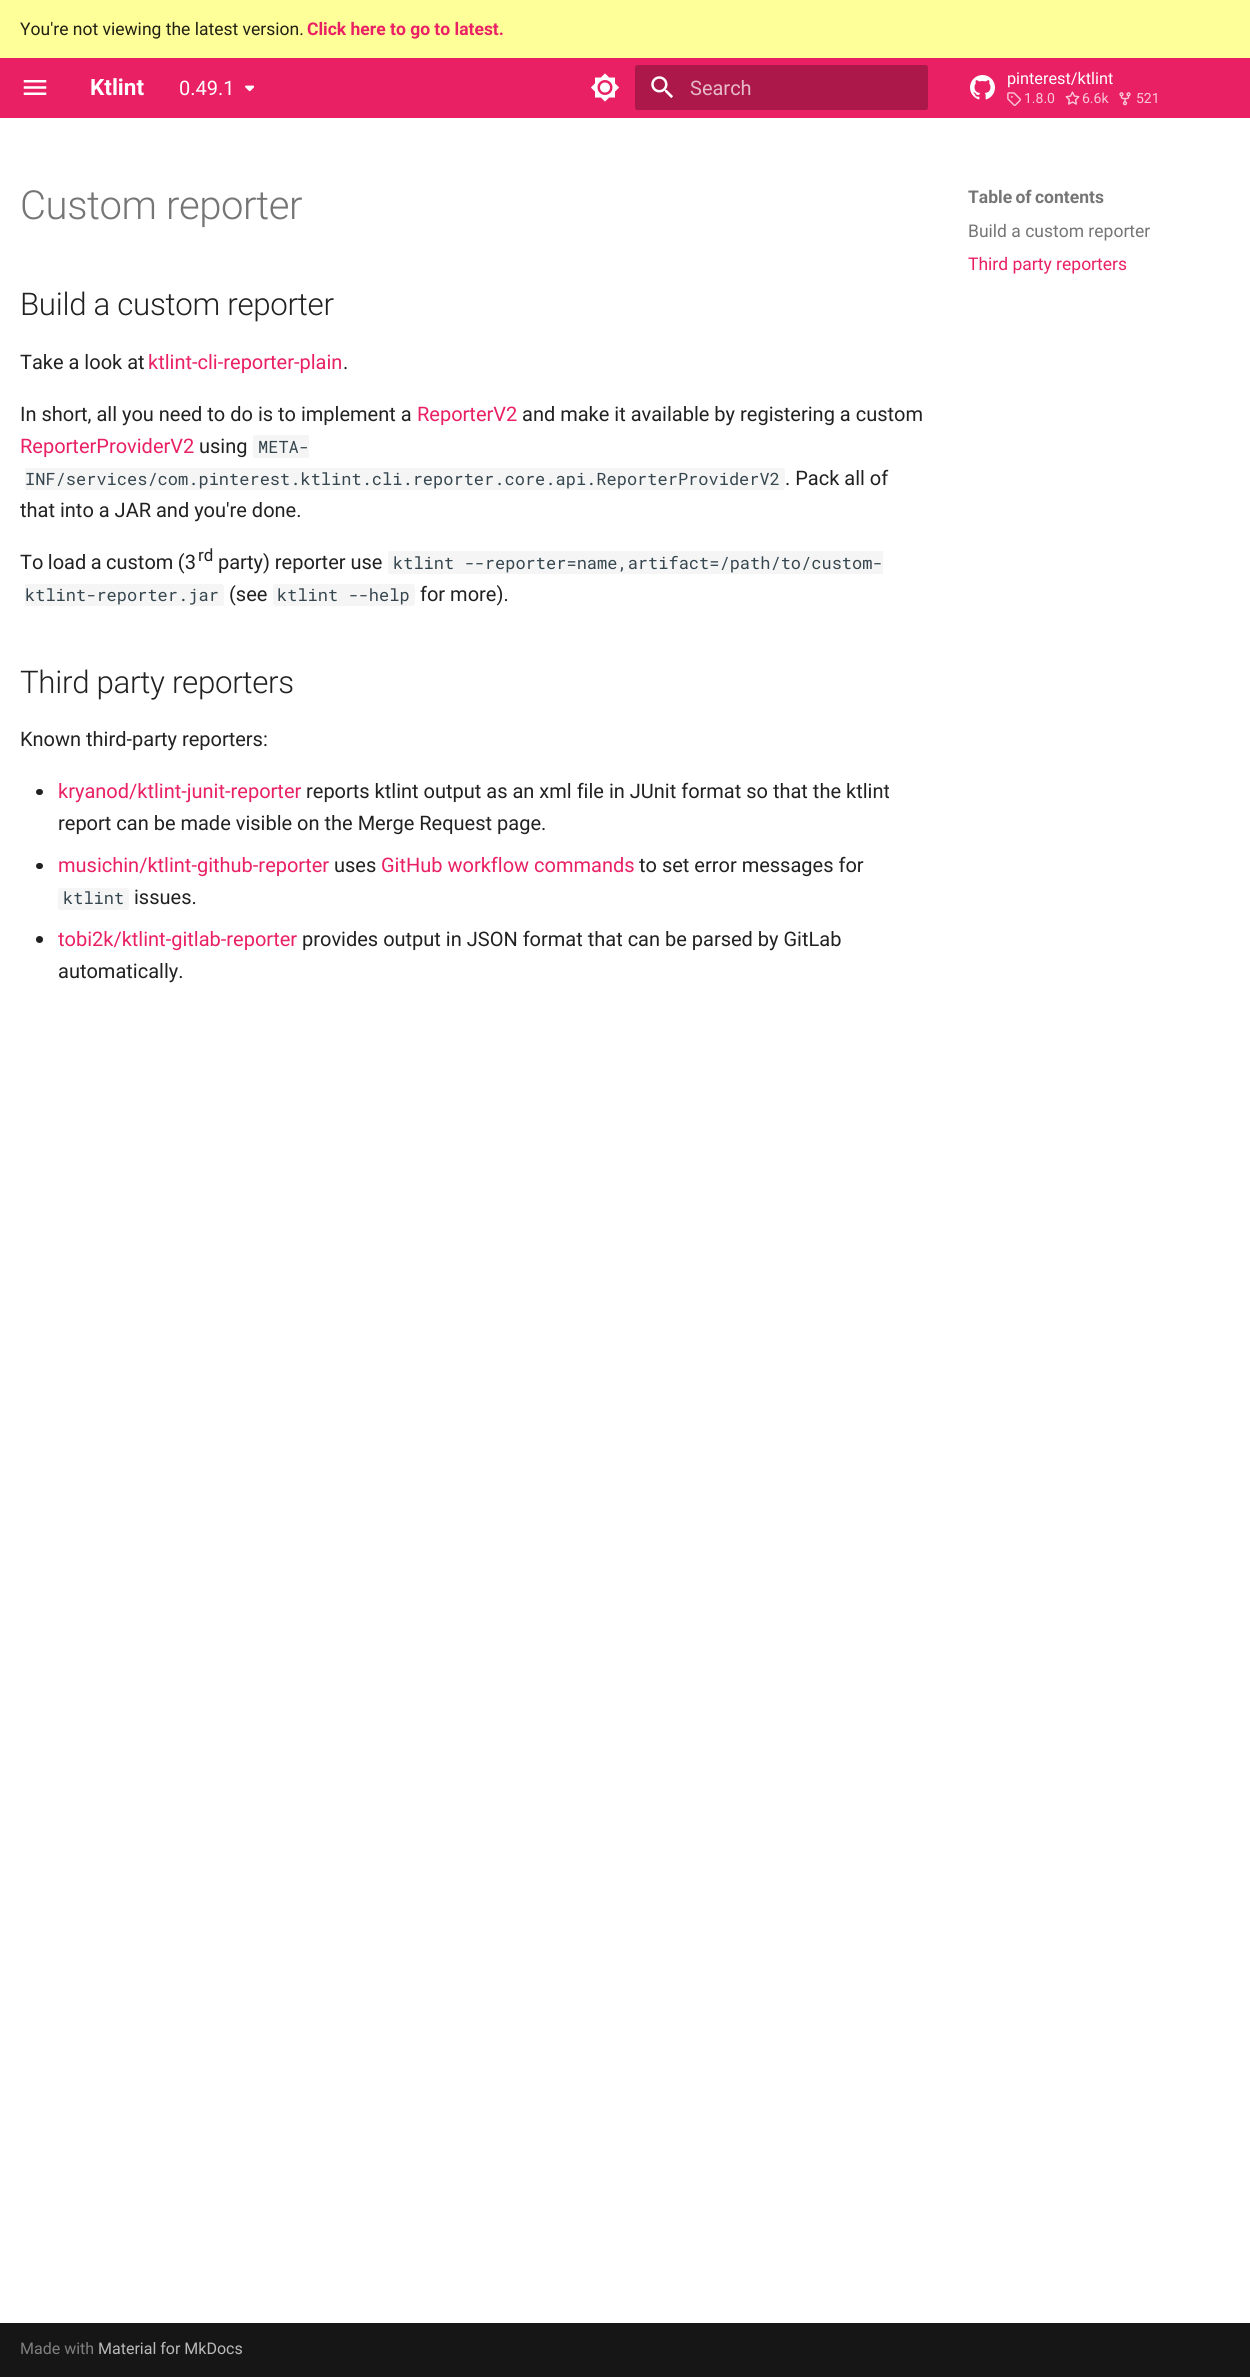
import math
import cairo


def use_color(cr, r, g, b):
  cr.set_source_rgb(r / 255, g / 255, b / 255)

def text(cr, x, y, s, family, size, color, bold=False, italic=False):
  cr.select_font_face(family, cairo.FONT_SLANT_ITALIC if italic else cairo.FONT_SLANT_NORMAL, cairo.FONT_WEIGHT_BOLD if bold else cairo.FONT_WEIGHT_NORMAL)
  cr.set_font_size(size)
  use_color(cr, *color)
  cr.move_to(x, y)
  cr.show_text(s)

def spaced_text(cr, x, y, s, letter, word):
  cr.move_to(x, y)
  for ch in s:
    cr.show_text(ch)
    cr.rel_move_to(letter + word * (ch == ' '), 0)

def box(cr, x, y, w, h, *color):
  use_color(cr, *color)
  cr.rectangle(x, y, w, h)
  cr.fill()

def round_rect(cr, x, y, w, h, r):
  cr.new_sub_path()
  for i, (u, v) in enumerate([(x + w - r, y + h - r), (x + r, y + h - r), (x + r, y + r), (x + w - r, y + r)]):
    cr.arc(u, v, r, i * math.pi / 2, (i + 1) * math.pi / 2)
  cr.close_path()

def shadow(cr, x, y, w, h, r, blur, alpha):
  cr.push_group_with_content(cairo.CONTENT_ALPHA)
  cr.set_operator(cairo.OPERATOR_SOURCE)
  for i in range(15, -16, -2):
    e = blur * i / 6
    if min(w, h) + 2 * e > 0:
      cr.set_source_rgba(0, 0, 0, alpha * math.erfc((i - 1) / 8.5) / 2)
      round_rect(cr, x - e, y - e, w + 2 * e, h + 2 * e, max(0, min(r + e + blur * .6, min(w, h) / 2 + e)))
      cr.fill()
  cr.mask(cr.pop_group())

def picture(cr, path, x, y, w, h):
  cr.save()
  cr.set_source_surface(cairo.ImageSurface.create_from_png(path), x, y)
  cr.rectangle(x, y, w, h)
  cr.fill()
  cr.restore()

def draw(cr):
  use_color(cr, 255, 255, 255)
  cr.paint()
  box(cr, 0, 0, 1250, 58, 255, 255, 153)
  box(cr, 0, 58, 1250, 60, 233, 32, 99)
  picture(cr, "img_01.png", 23, 80, 24, 15)
  picture(cr, "img_02.png", 245, 85, 9, 7)
  picture(cr, "img_03.png", 591, 73, 28, 29)
  use_color(cr, 172, 24, 73)
  round_rect(cr, 635, 65, 293, 45, 2.5)
  cr.fill()
  picture(cr, "img_04.png", 651, 76, 22, 22)
  picture(cr, "img_05.png", 970, 75, 25, 25)
  picture(cr, "img_06.png", 1007, 92, 14, 14)
  picture(cr, "img_07.png", 1065, 91, 15, 14)
  picture(cr, "img_08.png", 1119, 92, 12, 14)
  use_color(cr, 245, 245, 245)
  cr.new_path()
  cr.move_to(255.5, 435)
  cr.line_to(309, 435)
  cr.line_to(309, 458)
  cr.line_to(255.5, 458)
  cr.curve_to(254, 458, 253, 457, 253, 455.5)
  cr.line_to(253, 437.5)
  cr.curve_to(253, 436, 254, 435, 255.5, 435)
  cr.close_path()
  cr.fill()
  cr.new_path()
  cr.move_to(25, 468)
  cr.line_to(782.5, 468)
  cr.curve_to(784, 468, 785, 469, 785, 470.5)
  cr.line_to(785, 487.5)
  cr.curve_to(785, 489, 784, 490, 782.5, 490)
  cr.line_to(25, 490)
  cr.close_path()
  cr.fill()
  cr.new_path()
  cr.move_to(390.5, 551)
  cr.line_to(883, 551)
  cr.line_to(883, 574)
  cr.line_to(390.5, 574)
  cr.curve_to(389, 574, 388, 573, 388, 571.5)
  cr.line_to(388, 553.5)
  cr.curve_to(388, 552, 389, 551, 390.5, 551)
  cr.close_path()
  cr.fill()
  cr.new_path()
  cr.move_to(25, 584)
  cr.line_to(221.5, 584)
  cr.curve_to(223, 584, 224, 585, 224, 586.5)
  cr.line_to(224, 603.5)
  cr.curve_to(224, 605, 223, 606, 221.5, 606)
  cr.line_to(25, 606)
  cr.close_path()
  cr.fill()
  round_rect(cr, 273, 584, 142, 22, 2.5)
  cr.fill()
  use_color(cr, 33, 33, 33)
  round_rect(cr, 36, 789, 7, 6, 3)
  cr.fill()
  round_rect(cr, 36, 863, 7, 6, 3)
  cr.fill()
  use_color(cr, 245, 245, 245)
  round_rect(cr, 58, 888, 71, 22, 2.5)
  cr.fill()
  use_color(cr, 33, 33, 33)
  cr.arc(39.5, 939.5, 3.5, 0, 2 * math.pi)
  cr.fill()
  cr.save()
  cr.rectangle(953, 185, 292, 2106)
  cr.clip()
  cr.set_fill_rule(cairo.FILL_RULE_EVEN_ODD)
  cr.new_path()
  cr.move_to(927, 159)
  cr.line_to(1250, 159)
  cr.line_to(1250, 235)
  cr.line_to(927, 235)
  cr.close_path()
  cr.move_to(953, 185)
  cr.line_to(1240, 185)
  cr.line_to(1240, 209)
  cr.line_to(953, 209)
  cr.close_path()
  cr.clip()
  use_color(cr, 255, 255, 255)
  shadow(cr, 943, 175, 307, 44, 0, 5, 1)
  cr.restore()
  box(cr, 0, 2323, 1250, 54, 22, 22, 22)
  text(cr, 20, 35, "You're not viewing the latest version.", "Roboto", 17.5, (33, 33, 20))
  text(cr, 307, 35, "Click here to go to latest.", "Roboto", 17.5, (233, 32, 99), bold=True)
  text(cr, 90, 95, "Ktlint", "Roboto", 22.5, (255, 255, 255), bold=True)
  text(cr, 179, 95, "0.49.1", "Roboto", 20, (255, 255, 255))
  text(cr, 690, 95, "Search", "Roboto", 20, (230, 186, 200))
  text(cr, 1007, 84, "pinterest/ktlint", "Roboto", 16.25, (255, 255, 255))
  text(cr, 1024, 103, "1.8.0", "Roboto", 14, (250, 199, 216))
  text(cr, 1082, 103, "6.6k", "Roboto", 14, (250, 199, 216))
  text(cr, 1136, 103, "521", "Roboto", 14, (250, 199, 216))
  cr.select_font_face("Roboto Light")
  cr.set_font_size(40)
  use_color(cr, 117, 117, 117)
  spaced_text(cr, 20, 219, "Custom reporter", -0.4, 0)
  cr.set_font_size(31.25)
  use_color(cr, 33, 33, 33)
  spaced_text(cr, 20, 315, "Build a custom reporter", -0.3, 0)
  text(cr, 20, 369, "Take a look at", "Roboto", 20, (33, 33, 33))
  text(cr, 148, 369, "ktlint-cli-reporter-plain", "Roboto", 20, (233, 32, 99))
  text(cr, 343, 369, ".", "Roboto", 20, (33, 33, 33))
  text(cr, 20, 421, "In short, all you need to do is to implement a", "Roboto", 20, (33, 33, 33))
  text(cr, 417, 421, "ReporterV2", "Roboto", 20, (233, 32, 99))
  text(cr, 522, 421, "and make it available by registering a custom", "Roboto", 20, (33, 33, 33))
  text(cr, 20, 453, "ReporterProviderV2", "Roboto", 20, (233, 32, 99))
  text(cr, 199, 453, "using", "Roboto", 20, (33, 33, 33))
  text(cr, 258, 453, "META-", "Roboto Mono", 17, (54, 70, 78))
  text(cr, 25, 485, "INF/services/com.pinterest.ktlint.cli.reporter.core.api.ReporterProviderV2", "Roboto Mono", 17, (54, 70, 78))
  text(cr, 785, 485, ". Pack all of", "Roboto", 20, (33, 33, 33))
  text(cr, 20, 517, "that into a JAR and you're done.", "Roboto", 20, (33, 33, 33))
  spaced_text(cr, 20, 569, "To load a custom (3", 0, -0.5)
  text(cr, 198, 561, "rd", "Roboto", 17, (33, 33, 33))
  text(cr, 218, 569, "party) reporter use", "Roboto", 20, (33, 33, 33))
  text(cr, 393, 569, "ktlint --reporter=name,artifact=/path/to/custom-", "Roboto Mono", 17, (54, 70, 78))
  text(cr, 25, 601, "ktlint-reporter.jar", "Roboto Mono", 17, (54, 70, 78))
  text(cr, 229, 601, "(see", "Roboto", 20, (33, 33, 33))
  text(cr, 277, 601, "ktlint --help", "Roboto Mono", 17, (54, 70, 78))
  text(cr, 420, 601, "for more).", "Roboto", 20, (33, 33, 33))
  cr.select_font_face("Roboto Light")
  cr.set_font_size(31.25)
  spaced_text(cr, 20, 693, "Third party reporters", -0.3, 0)
  text(cr, 20, 746, "Known third-party reporters:", "Roboto", 20, (33, 33, 33))
  text(cr, 58, 798, "kryanod/ktlint-junit-reporter", "Roboto", 20, (233, 32, 99))
  text(cr, 306, 798, "reports ktlint output as an xml file in JUnit format so that the ktlint", "Roboto", 20, (33, 33, 33))
  text(cr, 58, 830, "report can be made visible on the Merge Request page.", "Roboto", 20, (33, 33, 33))
  text(cr, 58, 872, "musichin/ktlint-github-reporter", "Roboto", 20, (233, 32, 99))
  text(cr, 334, 872, "uses", "Roboto", 20, (33, 33, 33))
  text(cr, 381, 872, "GitHub workflow commands", "Roboto", 20, (233, 32, 99))
  text(cr, 639, 872, "to set error messages for", "Roboto", 20, (33, 33, 33))
  text(cr, 63, 904, "ktlint", "Roboto Mono", 17, (54, 70, 78))
  text(cr, 134, 904, "issues.", "Roboto", 20, (33, 33, 33))
  text(cr, 58, 946, "tobi2k/ktlint-gitlab-reporter", "Roboto", 20, (233, 32, 99))
  text(cr, 302, 946, "provides output in JSON format that can be parsed by GitLab", "Roboto", 20, (33, 33, 33))
  text(cr, 58, 978, "automatically.", "Roboto", 20, (33, 33, 33))
  cr.select_font_face("Roboto", cairo.FONT_SLANT_NORMAL, cairo.FONT_WEIGHT_BOLD)
  cr.set_font_size(17.5)
  use_color(cr, 117, 117, 117)
  spaced_text(cr, 968, 203, "Table of contents", 0, -1)
  text(cr, 968, 237, "Build a custom reporter", "Roboto", 17.5, (117, 117, 117))
  text(cr, 968, 270, "Third party reporters", "Roboto", 17.5, (233, 32, 99))
  text(cr, 20, 2354, "Made with", "Roboto", 16, (127, 127, 127))
  text(cr, 98, 2354, "Material for MkDocs", "Roboto", 16, (185, 185, 185))


surface = cairo.ImageSurface(cairo.FORMAT_RGB24, 1250, 2377)
cr = cairo.Context(surface)
options = cairo.FontOptions()
options.set_hint_metrics(cairo.HINT_METRICS_OFF)
options.set_hint_style(cairo.HINT_STYLE_NONE)
cr.set_font_options(options)
cr.set_miter_limit(4)
draw(cr)
surface.write_to_png("out.png")
